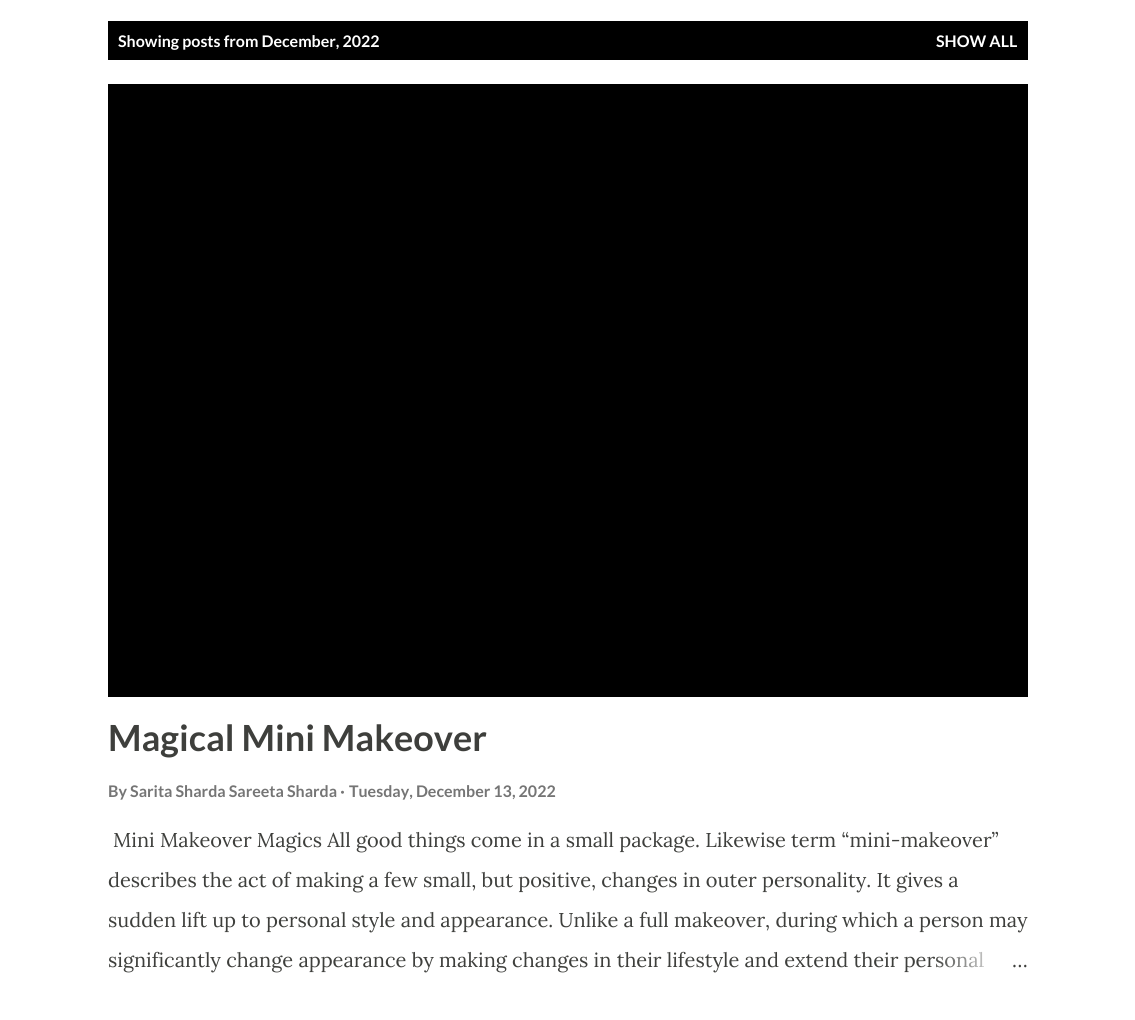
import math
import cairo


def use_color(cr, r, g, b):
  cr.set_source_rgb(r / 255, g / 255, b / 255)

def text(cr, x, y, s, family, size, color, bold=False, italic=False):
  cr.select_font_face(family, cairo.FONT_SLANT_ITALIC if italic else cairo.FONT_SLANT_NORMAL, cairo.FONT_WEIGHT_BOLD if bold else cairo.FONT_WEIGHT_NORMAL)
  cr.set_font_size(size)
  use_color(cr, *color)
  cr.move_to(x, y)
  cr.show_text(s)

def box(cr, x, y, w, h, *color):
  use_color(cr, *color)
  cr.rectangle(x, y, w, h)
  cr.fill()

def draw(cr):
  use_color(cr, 255, 255, 255)
  cr.paint()
  box(cr, 108, 21, 920, 39, 0, 0, 0)
  box(cr, 108, 84, 920, 613, 0, 0, 0)
  text(cr, 118, 47, "Showing posts from December, 2022", "Lato", 16, (255, 255, 255), bold=True)
  text(cr, 936, 47, "SHOW ALL", "Lato", 16, (255, 255, 255), bold=True)
  text(cr, 108, 751, "Magical Mini Makeover", "Lato", 36, (62, 63, 60), bold=True)
  text(cr, 108, 797, "By Sarita Sharda Sareeta Sharda ·", "Lato", 16, (117, 117, 117), bold=True)
  text(cr, 349, 797, "Tuesday, December 13, 2022", "Lato", 16, (117, 117, 117), bold=True)
  text(cr, 113, 847, "Mini Makeover Magics All good things come in a small package. Likewise term “mini-makeover”", "Lora", 20, (62, 63, 60))
  text(cr, 108, 887, "describes the act of making a few small, but positive, changes in outer personality. It gives a", "Lora", 20, (62, 63, 60))
  text(cr, 108, 927, "sudden lift up to personal style and appearance. Unlike a full makeover, during which a person may", "Lora", 20, (62, 63, 60))
  text(cr, 108, 967, "significantly change appearance by making changes in their lifestyle and extend their personal", "Lora", 20, (62, 63, 60))
  gradient = cairo.LinearGradient(1028, 960, 932, 960)
  gradient.add_color_stop_rgba(0, 1, 1, 1, 1)
  gradient.add_color_stop_rgba(0.2, 1, 1, 1, 1)
  gradient.add_color_stop_rgba(1, 1, 1, 1, 0)
  cr.set_source(gradient)
  cr.rectangle(935, 951, 48, 17)
  cr.fill()
  text(cr, 1012, 967, "…", "Lora", 20, (62, 63, 60))


surface = cairo.ImageSurface(cairo.FORMAT_RGB24, 1135, 1020)
cr = cairo.Context(surface)
options = cairo.FontOptions()
options.set_hint_metrics(cairo.HINT_METRICS_OFF)
options.set_hint_style(cairo.HINT_STYLE_NONE)
cr.set_font_options(options)
cr.set_miter_limit(4)
draw(cr)
surface.write_to_png("out.png")
